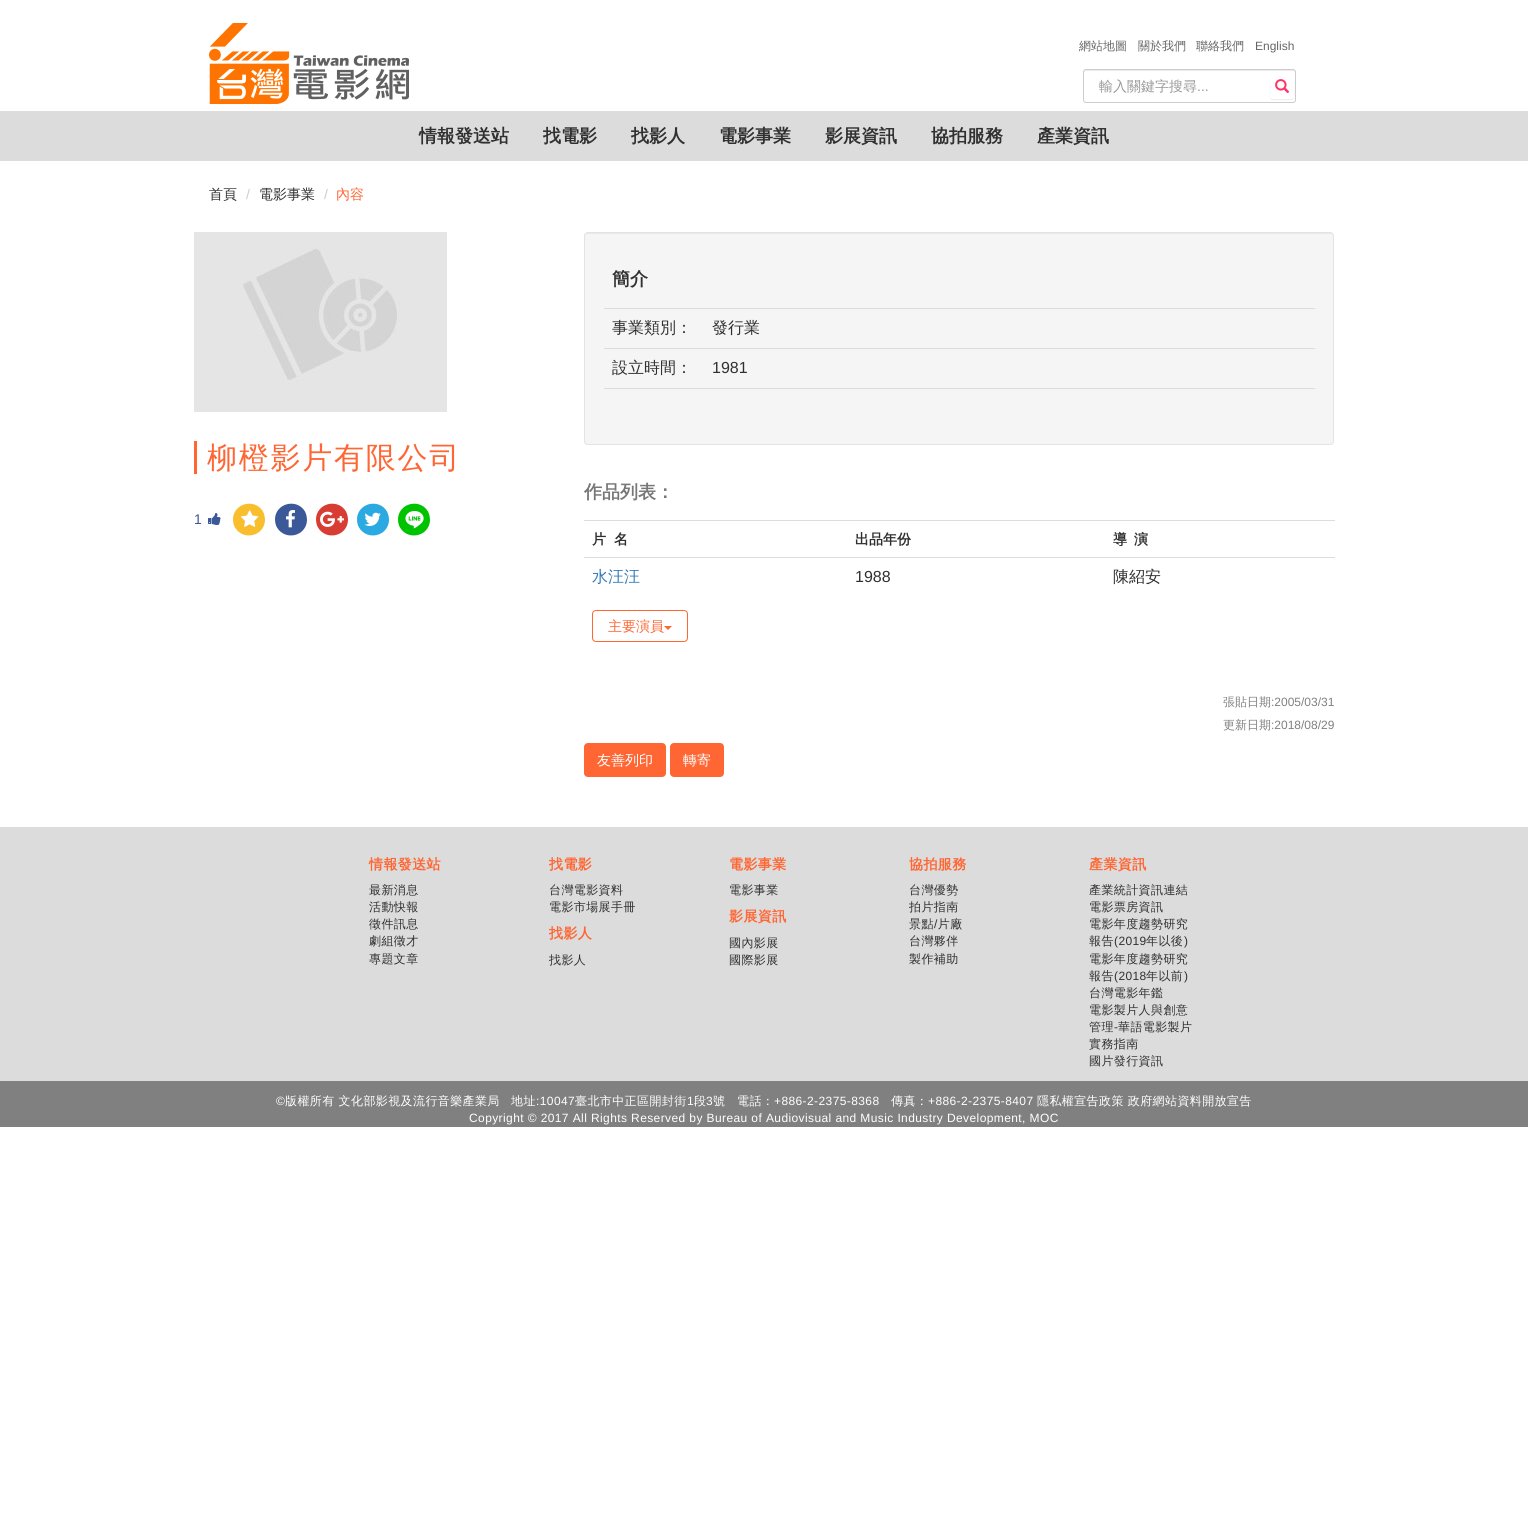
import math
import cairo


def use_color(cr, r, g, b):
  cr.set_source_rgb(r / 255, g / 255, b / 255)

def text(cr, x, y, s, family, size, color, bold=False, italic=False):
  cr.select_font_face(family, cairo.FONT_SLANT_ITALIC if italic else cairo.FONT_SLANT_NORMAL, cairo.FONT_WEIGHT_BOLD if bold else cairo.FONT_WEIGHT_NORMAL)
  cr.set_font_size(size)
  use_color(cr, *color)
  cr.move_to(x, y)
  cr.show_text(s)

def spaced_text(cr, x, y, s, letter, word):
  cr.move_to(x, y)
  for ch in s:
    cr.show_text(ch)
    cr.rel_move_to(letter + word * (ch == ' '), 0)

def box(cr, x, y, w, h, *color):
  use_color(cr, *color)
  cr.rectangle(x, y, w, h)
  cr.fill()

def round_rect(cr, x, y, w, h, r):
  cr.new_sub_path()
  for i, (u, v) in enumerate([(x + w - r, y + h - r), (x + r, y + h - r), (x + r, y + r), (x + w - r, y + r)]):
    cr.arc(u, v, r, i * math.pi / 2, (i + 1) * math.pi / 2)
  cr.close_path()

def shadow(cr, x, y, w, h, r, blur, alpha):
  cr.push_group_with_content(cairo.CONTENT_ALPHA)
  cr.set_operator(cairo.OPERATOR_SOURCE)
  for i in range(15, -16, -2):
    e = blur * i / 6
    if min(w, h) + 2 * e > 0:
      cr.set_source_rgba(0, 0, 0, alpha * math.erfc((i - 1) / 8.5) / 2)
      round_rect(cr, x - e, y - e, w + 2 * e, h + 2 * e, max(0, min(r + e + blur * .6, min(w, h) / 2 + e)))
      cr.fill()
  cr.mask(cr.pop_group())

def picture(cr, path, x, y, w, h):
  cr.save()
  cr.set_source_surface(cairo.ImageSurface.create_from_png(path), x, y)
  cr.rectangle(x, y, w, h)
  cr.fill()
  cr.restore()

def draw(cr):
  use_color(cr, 255, 255, 255)
  cr.paint()
  picture(cr, "img_01.png", 209, 23, 200, 81)
  use_color(cr, 236, 236, 236)
  cr.new_path()
  cr.move_to(1086, 71)
  cr.line_to(1293, 71)
  cr.curve_to(1294, 71, 1295, 72, 1295, 73)
  cr.curve_to(1295, 72, 1295, 70, 1293, 70)
  cr.line_to(1086, 70)
  cr.curve_to(1084, 70, 1084, 72, 1084, 73)
  cr.curve_to(1084, 72, 1085, 71, 1086, 71)
  cr.close_path()
  cr.fill()
  round_rect(cr, 1083.5, 69.5, 212, 33, 2.5)
  use_color(cr, 204, 204, 204)
  cr.set_line_width(1)
  cr.stroke()
  cr.save()
  cr.set_fill_rule(cairo.FILL_RULE_EVEN_ODD)
  cr.new_path()
  cr.move_to(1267, 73)
  cr.line_to(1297, 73)
  cr.line_to(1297, 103)
  cr.line_to(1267, 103)
  cr.close_path()
  cr.move_to(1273, 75)
  cr.line_to(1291, 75)
  cr.curve_to(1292.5, 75, 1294, 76.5, 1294, 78)
  cr.line_to(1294, 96)
  cr.curve_to(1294, 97.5, 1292.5, 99, 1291, 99)
  cr.line_to(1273, 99)
  cr.curve_to(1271.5, 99, 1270, 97.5, 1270, 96)
  cr.line_to(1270, 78)
  cr.curve_to(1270, 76.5, 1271.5, 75, 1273, 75)
  cr.close_path()
  cr.clip()
  use_color(cr, 0, 0, 0)
  shadow(cr, 1270, 76, 24, 24, 3, 0.5, 0.07)
  cr.restore()
  picture(cr, "img_02.png", 1275, 79, 15, 14)
  box(cr, 0, 111, 1528, 50, 220, 220, 220)
  picture(cr, "img_03.png", 194, 232, 253, 180)
  box(cr, 194, 441, 3, 33, 255, 102, 51)
  picture(cr, "img_04.png", 208, 513, 13, 12)
  use_color(cr, 249, 190, 45)
  cr.new_path()
  cr.move_to(263, 511.5)
  cr.curve_to(264.5, 514.5, 265, 517.5, 265, 520.5)
  cr.curve_to(264, 536.5, 243, 541, 235, 527.5)
  cr.curve_to(233.5, 525, 233, 522, 233, 518.5)
  cr.curve_to(234, 503, 255, 498, 263, 511.5)
  cr.close_path()
  cr.fill()
  picture(cr, "img_05.png", 241, 510, 18, 17)
  use_color(cr, 59, 89, 152)
  cr.new_path()
  cr.move_to(305, 511.5)
  cr.curve_to(306.5, 514.5, 307, 517.5, 307, 520.5)
  cr.curve_to(306, 536.5, 285, 541, 277, 527.5)
  cr.curve_to(275.5, 525, 275, 522, 275, 518.5)
  cr.curve_to(276, 503, 297, 498, 305, 511.5)
  cr.close_path()
  cr.fill()
  picture(cr, "img_06.png", 286, 510, 9, 18)
  use_color(cr, 215, 61, 50)
  cr.new_path()
  cr.move_to(346, 511.5)
  cr.curve_to(347.5, 514.5, 348, 517.5, 348, 520.5)
  cr.curve_to(347, 536.5, 326, 541, 318, 527.5)
  cr.curve_to(316.5, 525, 316, 522, 316, 518.5)
  cr.curve_to(317, 503, 338, 498, 346, 511.5)
  cr.close_path()
  cr.fill()
  picture(cr, "img_07.png", 320, 511, 24, 16)
  use_color(cr, 43, 169, 225)
  cr.new_path()
  cr.move_to(387, 511.5)
  cr.curve_to(388.5, 514.5, 389, 517.5, 389, 520.5)
  cr.curve_to(388, 536.5, 367, 541, 359, 527.5)
  cr.curve_to(357.5, 525, 357, 522, 357, 518.5)
  cr.curve_to(358, 503, 379, 498, 387, 511.5)
  cr.close_path()
  cr.fill()
  picture(cr, "img_08.png", 364, 512, 17, 14)
  use_color(cr, 0, 195, 0)
  cr.new_path()
  cr.move_to(428, 511.5)
  cr.curve_to(429.5, 514.5, 430, 517.5, 430, 520.5)
  cr.curve_to(429, 536.5, 408, 541, 400, 527.5)
  cr.curve_to(398.5, 525, 398, 522, 398, 518.5)
  cr.curve_to(399, 503, 420, 498, 428, 511.5)
  cr.close_path()
  cr.fill()
  picture(cr, "img_09.png", 405, 511, 19, 18)
  use_color(cr, 245, 245, 245)
  round_rect(cr, 584, 232, 750, 213, 4)
  cr.fill()
  use_color(cr, 233, 233, 233)
  cr.new_path()
  cr.move_to(588, 234)
  cr.line_to(1330, 234)
  cr.curve_to(1332, 234, 1333, 235, 1333, 237)
  cr.curve_to(1333, 235, 1332, 233, 1330, 233)
  cr.line_to(588, 233)
  cr.curve_to(586, 233, 585, 235, 585, 237)
  cr.curve_to(585, 235, 586, 234, 588, 234)
  cr.close_path()
  cr.fill()
  round_rect(cr, 584.5, 232.5, 749, 212, 3.5)
  use_color(cr, 227, 227, 227)
  cr.stroke()
  box(cr, 604, 308, 711, 1, 221, 221, 221)
  box(cr, 604, 348, 711, 1, 221, 221, 221)
  box(cr, 604, 388, 711, 1, 221, 221, 221)
  box(cr, 584, 520, 751, 1, 221, 221, 221)
  box(cr, 584, 557, 751, 1, 221, 221, 221)
  round_rect(cr, 592.5, 610.5, 95, 31, 3.5)
  use_color(cr, 255, 102, 51)
  cr.stroke()
  cr.new_path()
  cr.move_to(664, 626)
  cr.line_to(672, 626)
  cr.line_to(668, 630)
  cr.close_path()
  cr.fill()
  round_rect(cr, 584, 743, 82, 34, 4)
  cr.fill()
  round_rect(cr, 670, 743, 54, 34, 4)
  cr.fill()
  box(cr, 0, 827, 1528, 254, 220, 220, 220)
  box(cr, 0, 1081, 1528, 46, 128, 128, 128)
  text(cr, 1079, 50, "網站地圖", "WenQuanYi Zen Hei Medium", 12, (102, 102, 102))
  text(cr, 1138, 50, "關於我們", "WenQuanYi Zen Hei Medium", 12, (102, 102, 102))
  text(cr, 1196, 50, "聯絡我們", "WenQuanYi Zen Hei Medium", 12, (102, 102, 102))
  text(cr, 1255, 50, "English", "Liberation Sans", 12, (102, 102, 102))
  text(cr, 1099, 91, "輸入關鍵字搜尋", "WenQuanYi Zen Hei Medium", 14, (153, 153, 153))
  text(cr, 1197, 91, "...", "Liberation Sans", 14, (153, 153, 153))
  text(cr, 419, 142, "情報發送站", "WenQuanYi Zen Hei", 18, (48, 48, 48), bold=True)
  text(cr, 543, 142, "找電影", "WenQuanYi Zen Hei", 18, (48, 48, 48), bold=True)
  text(cr, 631, 142, "找影人", "WenQuanYi Zen Hei", 18, (48, 48, 48), bold=True)
  text(cr, 719, 142, "電影事業", "WenQuanYi Zen Hei", 18, (48, 48, 48), bold=True)
  text(cr, 825, 142, "影展資訊", "WenQuanYi Zen Hei", 18, (48, 48, 48), bold=True)
  text(cr, 931, 142, "協拍服務", "WenQuanYi Zen Hei", 18, (48, 48, 48), bold=True)
  text(cr, 1037, 142, "產業資訊", "WenQuanYi Zen Hei", 18, (48, 48, 48), bold=True)
  text(cr, 209, 199, "首頁", "WenQuanYi Zen Hei Medium", 14, (48, 48, 48))
  text(cr, 246, 199, "/", "Liberation Sans", 14, (204, 204, 204))
  text(cr, 259, 199, "電影事業", "WenQuanYi Zen Hei Medium", 14, (48, 48, 48))
  text(cr, 324, 199, "/", "Liberation Sans", 14, (204, 204, 204))
  text(cr, 336, 199, "內容", "WenQuanYi Zen Hei Medium", 14, (255, 102, 51))
  cr.set_font_size(30)
  spaced_text(cr, 207, 468, "柳橙影片有限公司", 1.75, 0)
  text(cr, 194, 524, "1", "Liberation Sans", 14, (59, 88, 153))
  text(cr, 612, 285, "簡介", "WenQuanYi Zen Hei", 18, (48, 48, 48), bold=True)
  text(cr, 612, 333, "事業類別：", "WenQuanYi Zen Hei Medium", 16, (48, 48, 48))
  text(cr, 712, 333, "發行業", "WenQuanYi Zen Hei Medium", 16, (48, 48, 48))
  text(cr, 612, 373, "設立時間：", "WenQuanYi Zen Hei Medium", 16, (48, 48, 48))
  text(cr, 712, 373, "1981", "Liberation Sans", 16, (48, 48, 48))
  text(cr, 584, 498, "作品列表：", "WenQuanYi Zen Hei", 18, (119, 119, 119), bold=True)
  text(cr, 592, 544, "片", "WenQuanYi Zen Hei", 14, (48, 48, 48), bold=True)
  text(cr, 614, 544, "名", "WenQuanYi Zen Hei", 14, (48, 48, 48), bold=True)
  text(cr, 855, 544, "出品年份", "WenQuanYi Zen Hei", 14, (48, 48, 48), bold=True)
  text(cr, 1113, 544, "導", "WenQuanYi Zen Hei", 14, (48, 48, 48), bold=True)
  text(cr, 1134, 544, "演", "WenQuanYi Zen Hei", 14, (48, 48, 48), bold=True)
  text(cr, 592, 582, "水汪汪", "WenQuanYi Zen Hei Medium", 16, (51, 122, 183))
  text(cr, 855, 582, "1988", "Liberation Sans", 16, (48, 48, 48))
  text(cr, 1113, 582, "陳紹安", "WenQuanYi Zen Hei Medium", 16, (48, 48, 48))
  text(cr, 608, 631, "主要演員", "WenQuanYi Zen Hei Medium", 14, (255, 102, 51))
  text(cr, 1223, 706, "張貼日期", "WenQuanYi Zen Hei Medium", 12, (128, 128, 128))
  text(cr, 1271, 706, ":2005/03/31", "Liberation Sans", 12, (128, 128, 128))
  text(cr, 1223, 729, "更新日期", "WenQuanYi Zen Hei Medium", 12, (128, 128, 128))
  text(cr, 1271, 729, ":2018/08/29", "Liberation Sans", 12, (128, 128, 128))
  text(cr, 597, 765, "友善列印", "WenQuanYi Zen Hei Medium", 14, (255, 255, 255))
  text(cr, 683, 765, "轉寄", "WenQuanYi Zen Hei Medium", 14, (255, 255, 255))
  cr.select_font_face("WenQuanYi Zen Hei", cairo.FONT_SLANT_NORMAL, cairo.FONT_WEIGHT_BOLD)
  use_color(cr, 255, 102, 51)
  spaced_text(cr, 369, 869, "情報發送站", 0.4, 0)
  cr.select_font_face("WenQuanYi Zen Hei Medium")
  cr.set_font_size(12)
  use_color(cr, 48, 48, 48)
  spaced_text(cr, 369, 894, "最新消息", 0.4, 0)
  spaced_text(cr, 369, 911, "活動快報", 0.4, 0)
  spaced_text(cr, 369, 928, "徵件訊息", 0.4, 0)
  spaced_text(cr, 369, 945, "劇組徵才", 0.4, 0)
  spaced_text(cr, 369, 963, "專題文章", 0.4, 0)
  cr.select_font_face("WenQuanYi Zen Hei", cairo.FONT_SLANT_NORMAL, cairo.FONT_WEIGHT_BOLD)
  cr.set_font_size(14)
  use_color(cr, 255, 102, 51)
  spaced_text(cr, 549, 869, "找電影", 0.4, 0)
  cr.select_font_face("WenQuanYi Zen Hei Medium")
  cr.set_font_size(12)
  use_color(cr, 48, 48, 48)
  spaced_text(cr, 549, 894, "台灣電影資料", 0.4, 0)
  spaced_text(cr, 549, 911, "電影市場展手冊", 0.4, 0)
  cr.select_font_face("WenQuanYi Zen Hei", cairo.FONT_SLANT_NORMAL, cairo.FONT_WEIGHT_BOLD)
  cr.set_font_size(14)
  use_color(cr, 255, 102, 51)
  spaced_text(cr, 549, 938, "找影人", 0.4, 0)
  cr.select_font_face("WenQuanYi Zen Hei Medium")
  cr.set_font_size(12)
  use_color(cr, 48, 48, 48)
  spaced_text(cr, 549, 964, "找影人", 0.4, 0)
  cr.select_font_face("WenQuanYi Zen Hei", cairo.FONT_SLANT_NORMAL, cairo.FONT_WEIGHT_BOLD)
  cr.set_font_size(14)
  use_color(cr, 255, 102, 51)
  spaced_text(cr, 729, 869, "電影事業", 0.4, 0)
  cr.select_font_face("WenQuanYi Zen Hei Medium")
  cr.set_font_size(12)
  use_color(cr, 48, 48, 48)
  spaced_text(cr, 729, 894, "電影事業", 0.4, 0)
  cr.select_font_face("WenQuanYi Zen Hei", cairo.FONT_SLANT_NORMAL, cairo.FONT_WEIGHT_BOLD)
  cr.set_font_size(14)
  use_color(cr, 255, 102, 51)
  spaced_text(cr, 729, 921, "影展資訊", 0.4, 0)
  cr.select_font_face("WenQuanYi Zen Hei Medium")
  cr.set_font_size(12)
  use_color(cr, 48, 48, 48)
  spaced_text(cr, 729, 947, "國內影展", 0.4, 0)
  spaced_text(cr, 729, 964, "國際影展", 0.4, 0)
  cr.select_font_face("WenQuanYi Zen Hei", cairo.FONT_SLANT_NORMAL, cairo.FONT_WEIGHT_BOLD)
  cr.set_font_size(14)
  use_color(cr, 255, 102, 51)
  spaced_text(cr, 909, 869, "協拍服務", 0.4, 0)
  cr.select_font_face("WenQuanYi Zen Hei Medium")
  cr.set_font_size(12)
  use_color(cr, 48, 48, 48)
  spaced_text(cr, 909, 894, "台灣優勢", 0.4, 0)
  spaced_text(cr, 909, 911, "拍片指南", 0.4, 0)
  spaced_text(cr, 909, 928, "景點 片廠", 0.4, 0)
  cr.select_font_face("Liberation Sans")
  spaced_text(cr, 934, 928, "/", 0.4, 0)
  cr.select_font_face("WenQuanYi Zen Hei Medium")
  spaced_text(cr, 909, 945, "台灣夥伴", 0.4, 0)
  spaced_text(cr, 909, 963, "製作補助", 0.4, 0)
  cr.select_font_face("WenQuanYi Zen Hei", cairo.FONT_SLANT_NORMAL, cairo.FONT_WEIGHT_BOLD)
  cr.set_font_size(14)
  use_color(cr, 255, 102, 51)
  spaced_text(cr, 1089, 869, "產業資訊", 0.4, 0)
  cr.select_font_face("WenQuanYi Zen Hei Medium")
  cr.set_font_size(12)
  use_color(cr, 48, 48, 48)
  spaced_text(cr, 1089, 894, "產業統計資訊連結", 0.4, 0)
  spaced_text(cr, 1089, 911, "電影票房資訊", 0.4, 0)
  spaced_text(cr, 1089, 928, "電影年度趨勢研究", 0.4, 0)
  spaced_text(cr, 1089, 945, "報告", 0.4, 0)
  cr.select_font_face("Liberation Sans")
  spaced_text(cr, 1114, 945, "(2019", 0.4, 0)
  cr.select_font_face("WenQuanYi Zen Hei Medium")
  spaced_text(cr, 1146, 945, "年以後", 0.4, 0)
  cr.select_font_face("Liberation Sans")
  spaced_text(cr, 1184, 945, ")", 0.4, 0)
  cr.select_font_face("WenQuanYi Zen Hei Medium")
  spaced_text(cr, 1089, 963, "電影年度趨勢研究", 0.4, 0)
  spaced_text(cr, 1089, 980, "報告", 0.4, 0)
  cr.select_font_face("Liberation Sans")
  spaced_text(cr, 1114, 980, "(2018", 0.4, 0)
  cr.select_font_face("WenQuanYi Zen Hei Medium")
  spaced_text(cr, 1146, 980, "年以前", 0.4, 0)
  cr.select_font_face("Liberation Sans")
  spaced_text(cr, 1184, 980, ")", 0.4, 0)
  cr.select_font_face("WenQuanYi Zen Hei Medium")
  spaced_text(cr, 1089, 997, "台灣電影年鑑", 0.4, 0)
  spaced_text(cr, 1089, 1014, "電影製片人與創意", 0.4, 0)
  spaced_text(cr, 1089, 1031, "管理", 0.4, 0)
  cr.select_font_face("Liberation Sans")
  spaced_text(cr, 1114, 1031, "-", 0.4, 0)
  cr.select_font_face("WenQuanYi Zen Hei Medium")
  spaced_text(cr, 1118, 1031, "華語電影製片", 0.4, 0)
  spaced_text(cr, 1089, 1048, "實務指南", 0.4, 0)
  spaced_text(cr, 1089, 1065, "國片發行資訊", 0.4, 0)
  cr.select_font_face("Liberation Sans")
  use_color(cr, 255, 255, 255)
  spaced_text(cr, 276, 1105, "©", 0.4, 0)
  cr.select_font_face("WenQuanYi Zen Hei Medium")
  spaced_text(cr, 285, 1105, "版權所有 文化部影視及流行音樂產業局", 0.4, 0)
  spaced_text(cr, 511, 1105, "地址", 0.4, 0)
  cr.select_font_face("Liberation Sans")
  spaced_text(cr, 536, 1105, ":10047", 0.4, 0)
  cr.select_font_face("WenQuanYi Zen Hei Medium")
  spaced_text(cr, 575, 1105, "臺北市中正區開封街", 0.4, 0)
  cr.select_font_face("Liberation Sans")
  spaced_text(cr, 687, 1105, "1", 0.4, 0)
  cr.select_font_face("WenQuanYi Zen Hei Medium")
  spaced_text(cr, 694, 1105, "段", 0.4, 0)
  cr.select_font_face("Liberation Sans")
  spaced_text(cr, 706, 1105, "3", 0.4, 0)
  cr.select_font_face("WenQuanYi Zen Hei Medium")
  spaced_text(cr, 713, 1105, "號", 0.4, 0)
  spaced_text(cr, 737, 1105, "電話：", 0.4, 0)
  cr.select_font_face("Liberation Sans")
  spaced_text(cr, 774, 1105, "+886-2-2375-8368", 0.4, 0)
  cr.select_font_face("WenQuanYi Zen Hei Medium")
  spaced_text(cr, 891, 1105, "傳真：", 0.4, 0)
  cr.select_font_face("Liberation Sans")
  spaced_text(cr, 928, 1105, "+886-2-2375-8407", 0.4, 0)
  cr.select_font_face("WenQuanYi Zen Hei Medium")
  spaced_text(cr, 1037, 1105, "隱私權宣告政策 政府網站資料開放宣告", 0.4, 0)
  cr.select_font_face("Liberation Sans")
  spaced_text(cr, 469, 1122, "Copyright © 2017 All Rights Reserved by Bureau of Audiovisual and Music Industry Development, MOC", 0.4, 0)


surface = cairo.ImageSurface(cairo.FORMAT_RGB24, 1528, 1518)
cr = cairo.Context(surface)
options = cairo.FontOptions()
options.set_hint_metrics(cairo.HINT_METRICS_OFF)
options.set_hint_style(cairo.HINT_STYLE_NONE)
cr.set_font_options(options)
cr.set_miter_limit(4)
draw(cr)
surface.write_to_png("out.png")
